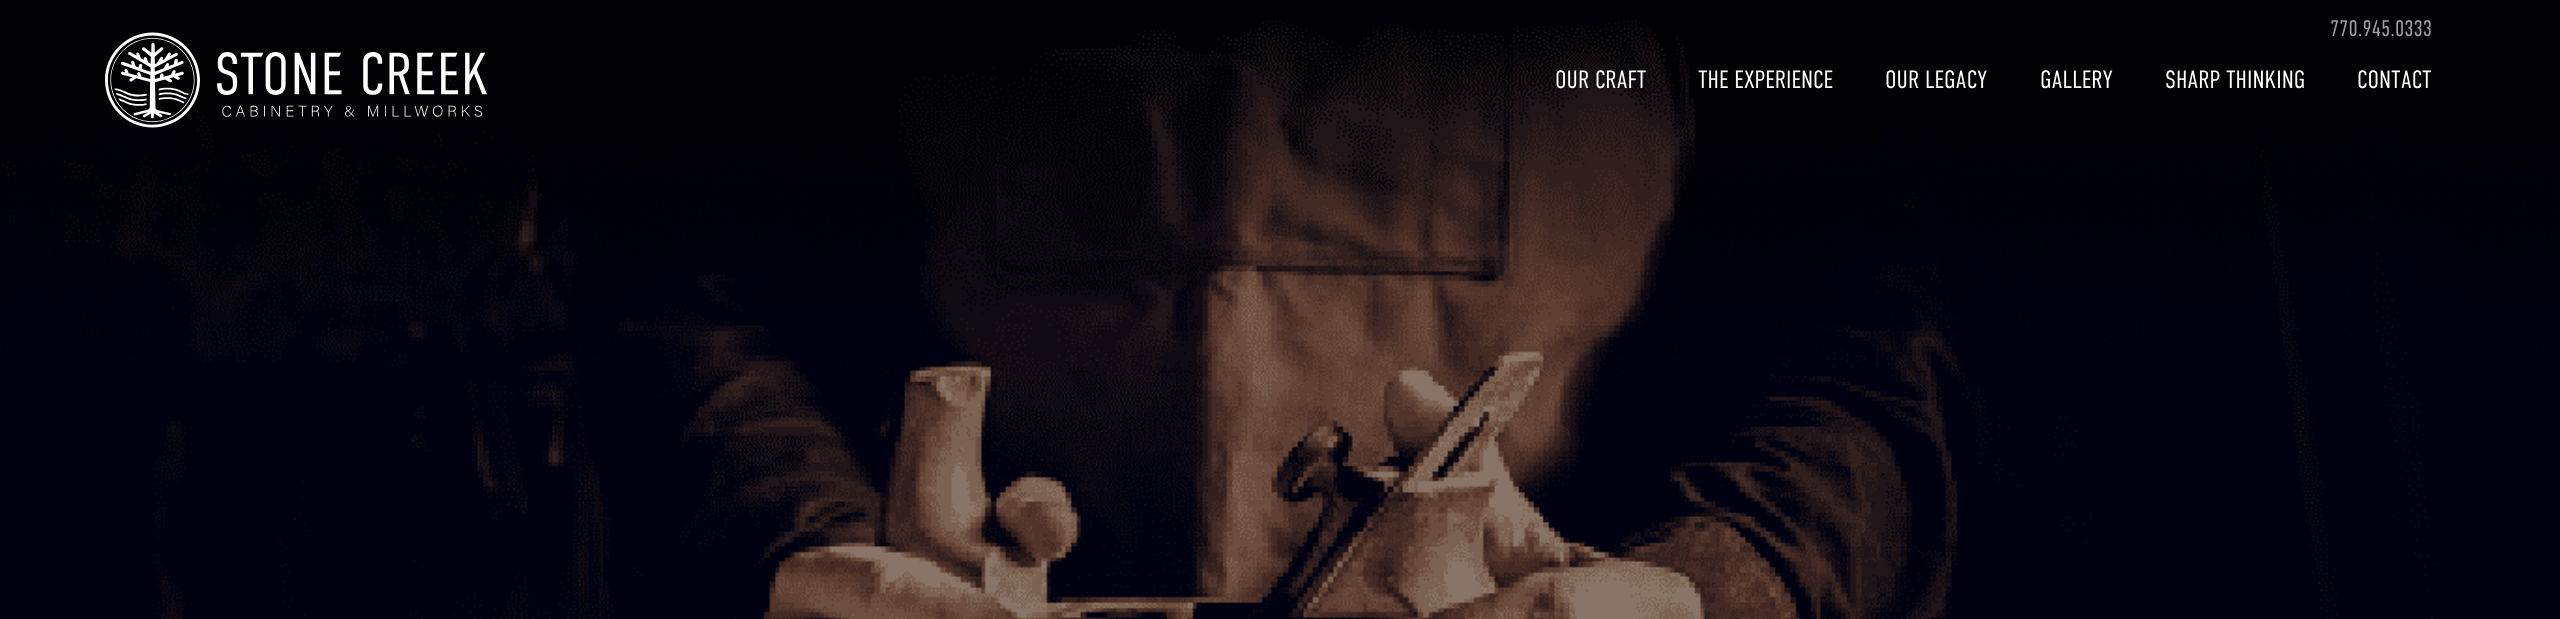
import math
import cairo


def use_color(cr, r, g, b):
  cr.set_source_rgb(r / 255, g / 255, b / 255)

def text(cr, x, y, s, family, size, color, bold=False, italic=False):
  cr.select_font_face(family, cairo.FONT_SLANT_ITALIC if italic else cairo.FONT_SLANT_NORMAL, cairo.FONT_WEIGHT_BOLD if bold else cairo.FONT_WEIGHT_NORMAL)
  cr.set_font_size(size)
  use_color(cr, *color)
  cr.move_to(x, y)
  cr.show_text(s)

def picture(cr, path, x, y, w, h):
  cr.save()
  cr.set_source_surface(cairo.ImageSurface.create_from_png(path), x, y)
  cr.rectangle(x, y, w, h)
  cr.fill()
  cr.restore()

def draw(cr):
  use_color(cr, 255, 255, 255)
  cr.paint()
  picture(cr, "img_01.png", 0, 0, 2560, 619)
  picture(cr, "img_02.png", 105, 32, 382, 96)
  text(cr, 2330, 36, "770.945.0333", "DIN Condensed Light", 22.5, (159, 159, 159))
  text(cr, 1555, 88, "OUR CRAFT", "DIN Condensed Light", 25, (255, 255, 255))
  text(cr, 1698, 88, "THE EXPERIENCE", "DIN Condensed Light", 25, (255, 255, 255))
  text(cr, 1885, 88, "OUR LEGACY", "DIN Condensed Light", 25, (255, 255, 255))
  text(cr, 2040, 88, "GALLERY", "DIN Condensed Light", 25, (255, 255, 255))
  text(cr, 2165, 88, "SHARP THINKING", "DIN Condensed Light", 25, (255, 255, 255))
  text(cr, 2357, 88, "CONTACT", "DIN Condensed Light", 25, (255, 255, 255))


surface = cairo.ImageSurface(cairo.FORMAT_RGB24, 2560, 619)
cr = cairo.Context(surface)
options = cairo.FontOptions()
options.set_hint_metrics(cairo.HINT_METRICS_OFF)
options.set_hint_style(cairo.HINT_STYLE_NONE)
cr.set_font_options(options)
cr.set_miter_limit(4)
draw(cr)
surface.write_to_png("out.png")
